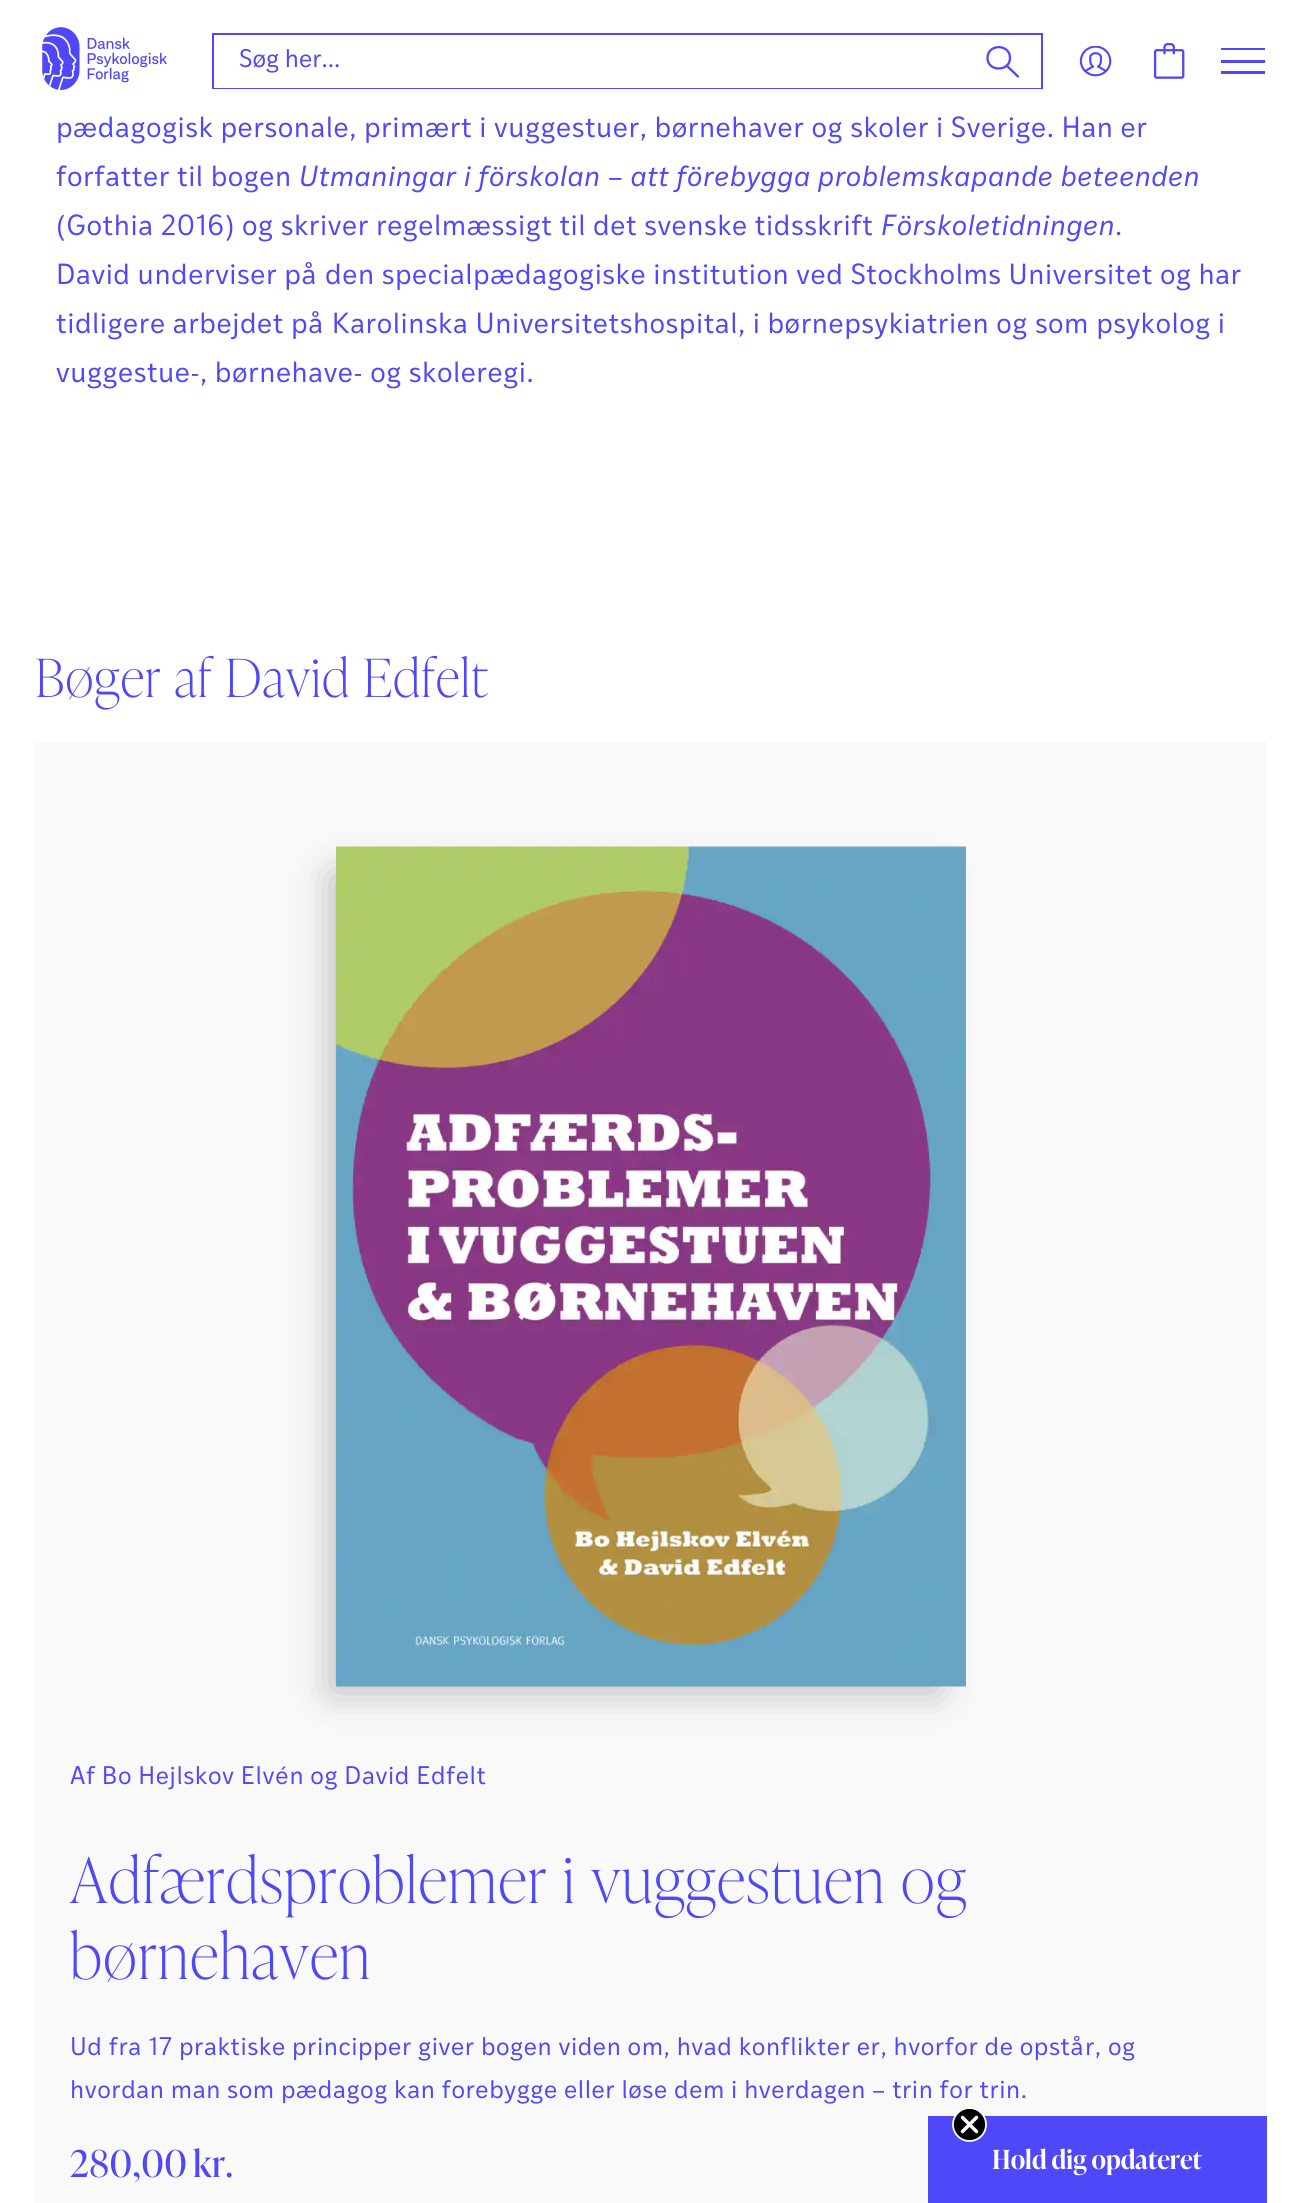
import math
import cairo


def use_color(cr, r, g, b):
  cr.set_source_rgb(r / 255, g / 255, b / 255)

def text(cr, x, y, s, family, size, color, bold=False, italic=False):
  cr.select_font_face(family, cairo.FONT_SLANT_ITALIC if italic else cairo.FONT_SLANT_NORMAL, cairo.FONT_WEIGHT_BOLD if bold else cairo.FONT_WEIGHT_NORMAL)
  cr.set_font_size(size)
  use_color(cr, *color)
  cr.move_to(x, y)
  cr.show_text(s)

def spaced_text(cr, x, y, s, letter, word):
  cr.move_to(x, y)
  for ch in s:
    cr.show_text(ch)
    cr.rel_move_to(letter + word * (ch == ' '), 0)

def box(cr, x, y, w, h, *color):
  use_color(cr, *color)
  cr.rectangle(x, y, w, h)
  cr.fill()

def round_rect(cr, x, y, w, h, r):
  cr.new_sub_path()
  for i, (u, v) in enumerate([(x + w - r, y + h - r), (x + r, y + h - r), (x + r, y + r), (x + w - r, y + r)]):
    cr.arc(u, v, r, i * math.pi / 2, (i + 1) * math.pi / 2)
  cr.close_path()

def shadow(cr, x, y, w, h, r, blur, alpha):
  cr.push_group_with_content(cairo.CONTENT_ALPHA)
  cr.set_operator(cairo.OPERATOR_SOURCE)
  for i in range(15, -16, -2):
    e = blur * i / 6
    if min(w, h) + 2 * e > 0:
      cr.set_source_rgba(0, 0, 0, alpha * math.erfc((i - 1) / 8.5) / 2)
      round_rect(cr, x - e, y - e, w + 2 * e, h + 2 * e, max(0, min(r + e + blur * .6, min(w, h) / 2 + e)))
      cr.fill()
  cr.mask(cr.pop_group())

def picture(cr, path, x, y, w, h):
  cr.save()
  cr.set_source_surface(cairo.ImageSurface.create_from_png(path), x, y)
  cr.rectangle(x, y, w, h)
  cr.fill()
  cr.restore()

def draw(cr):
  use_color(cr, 255, 255, 255)
  cr.paint()
  picture(cr, "img_01.png", 42, 27, 125, 63)
  cr.rectangle(213, 34, 829, 54)
  use_color(cr, 78, 72, 249)
  cr.stroke()
  box(cr, 214, 87, 827, 1, 255, 255, 255)
  cr.new_path()
  cr.move_to(1010, 58)
  cr.curve_to(1010, 43.5, 987.5, 43.5, 987.5, 58)
  cr.curve_to(987.5, 72, 1010, 72, 1010, 58)
  cr.close_path()
  cr.move_to(1006.5, 65.5)
  cr.line_to(1018, 76.5)
  use_color(cr, 78, 72, 249)
  cr.set_line_width(2.3)
  cr.set_line_cap(cairo.LINE_CAP_ROUND)
  cr.set_line_join(cairo.LINE_JOIN_ROUND)
  cr.stroke()
  picture(cr, "img_02.png", 1079, 46, 33, 31)
  picture(cr, "img_03.png", 1153, 43, 32, 36)
  box(cr, 1221, 48, 44, 2, 78, 72, 249)
  box(cr, 1221, 60, 44, 3, 78, 72, 249)
  box(cr, 1221, 71, 44, 3, 78, 72, 249)
  box(cr, 35, 742, 1232, 1461, 249, 249, 249)
  use_color(cr, 0, 0, 0)
  shadow(cr, 331, 875, 607, 817, 0, 19.5, 0.25)
  picture(cr, "img_04.png", 336, 846, 630, 841)
  box(cr, 928, 2116, 339, 87, 78, 72, 249)
  use_color(cr, 0, 0, 0)
  cr.arc(969.5, 2124.5, 16.5, 0, 2 * math.pi)
  cr.fill_preserve()
  use_color(cr, 255, 255, 255)
  cr.set_line_width(1.8)
  cr.set_line_cap(cairo.LINE_CAP_BUTT)
  cr.set_line_join(cairo.LINE_JOIN_MITER)
  cr.stroke()
  cr.new_path()
  cr.move_to(962.5, 2117.5)
  cr.line_to(976.5, 2131.5)
  cr.move_to(962.5, 2131.5)
  cr.line_to(976.5, 2117.5)
  cr.close_path()
  cr.set_line_width(3.5)
  cr.set_line_cap(cairo.LINE_CAP_ROUND)
  cr.set_line_join(cairo.LINE_JOIN_ROUND)
  cr.stroke()
  text(cr, 239, 67, "Søg her...", "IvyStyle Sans", 24.5, (78, 72, 249))
  cr.set_font_size(28)
  spaced_text(cr, 56, 137, "pædagogisk personale, primært i vuggestuer, børnehaver og skoler i Sverige. Han er", 0.55, 0)
  spaced_text(cr, 56, 186, "forfatter til bogen", 0.55, 0)
  cr.select_font_face("IvyStyle Sans", cairo.FONT_SLANT_ITALIC)
  spaced_text(cr, 299, 186, "Utmaningar i förskolan – att förebygga problemskapande beteenden", 0.55, 0)
  cr.select_font_face("IvyStyle Sans")
  spaced_text(cr, 56, 235, "(Gothia 2016) og skriver regelmæssigt til det svenske tidsskrift", 0.55, 0)
  cr.select_font_face("IvyStyle Sans", cairo.FONT_SLANT_ITALIC)
  spaced_text(cr, 881, 235, "Förskoletidningen", 0.55, 0)
  cr.select_font_face("IvyStyle Sans")
  spaced_text(cr, 1115, 235, ".", 0.55, 0)
  spaced_text(cr, 56, 284, "David underviser på den specialpædagogiske institution ved Stockholms Universitet og har", 0.55, 0)
  spaced_text(cr, 56, 333, "tidligere arbejdet på Karolinska Universitetshospital, i børnepsykiatrien og som psykolog i", 0.55, 0)
  spaced_text(cr, 56, 382, "vuggestue-, børnehave- og skoleregi.", 0.55, 0)
  cr.select_font_face("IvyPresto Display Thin")
  cr.set_font_size(52.5)
  spaced_text(cr, 35, 697, "Bøger af David Edfelt", 1.05, 0)
  cr.select_font_face("IvyStyle Sans")
  cr.set_font_size(24.5)
  spaced_text(cr, 70, 1784, "Af Bo Hejlskov Elvén og David Edfelt", 0.55, 0)
  cr.select_font_face("IvyPresto Display Thin")
  cr.set_font_size(63)
  spaced_text(cr, 70, 1903, "Adfærdsproblemer i vuggestuen og", 1.25, 0)
  spaced_text(cr, 70, 1979, "børnehaven", 1.25, 0)
  cr.select_font_face("IvyStyle Sans")
  cr.set_font_size(24.5)
  spaced_text(cr, 70, 2055, "Ud fra 17 praktiske principper giver bogen viden om, hvad konflikter er, hvorfor de opstår, og", 0.55, 0)
  spaced_text(cr, 70, 2098, "hvordan man som pædagog kan forebygge eller løse dem i hverdagen – trin for trin.", 0.55, 0)
  cr.select_font_face("IvyPresto Display")
  cr.set_font_size(37)
  spaced_text(cr, 70, 2177, "280,00", 0.55, 0)
  spaced_text(cr, 193, 2177, "kr.", 0.55, 0)
  text(cr, 992, 2169, "Hold dig opdateret", "IvyPresto Display SemiBold", 26.25, (255, 255, 255))


surface = cairo.ImageSurface(cairo.FORMAT_RGB24, 1301, 2203)
cr = cairo.Context(surface)
options = cairo.FontOptions()
options.set_hint_metrics(cairo.HINT_METRICS_OFF)
options.set_hint_style(cairo.HINT_STYLE_NONE)
cr.set_font_options(options)
cr.set_miter_limit(4)
draw(cr)
surface.write_to_png("out.png")
